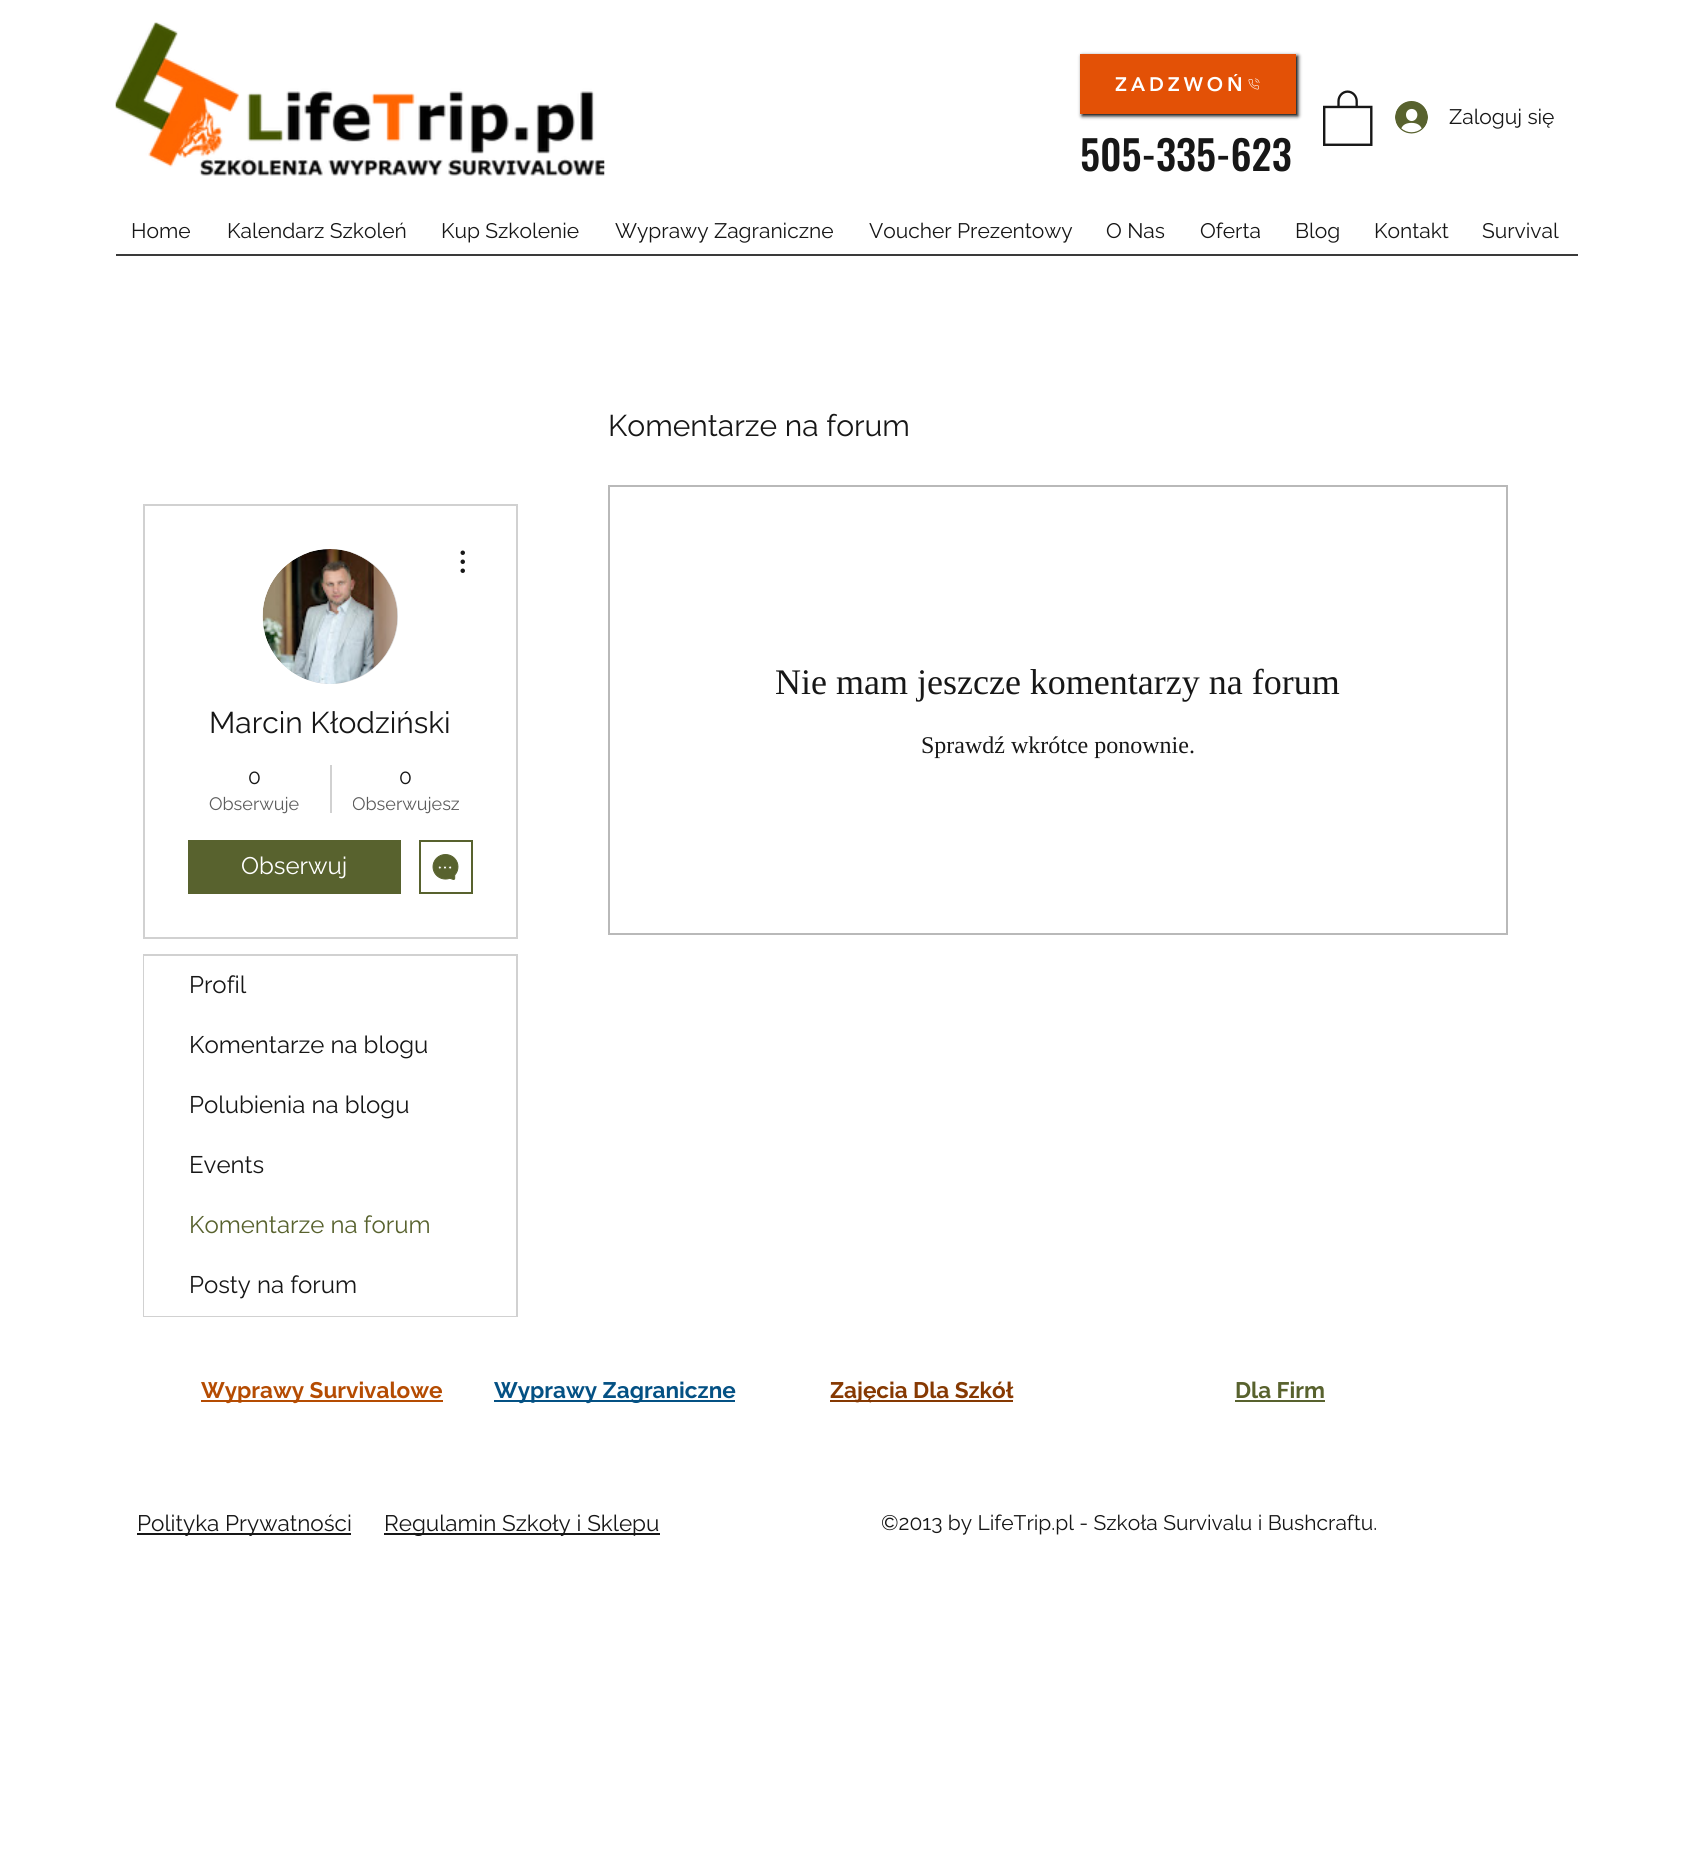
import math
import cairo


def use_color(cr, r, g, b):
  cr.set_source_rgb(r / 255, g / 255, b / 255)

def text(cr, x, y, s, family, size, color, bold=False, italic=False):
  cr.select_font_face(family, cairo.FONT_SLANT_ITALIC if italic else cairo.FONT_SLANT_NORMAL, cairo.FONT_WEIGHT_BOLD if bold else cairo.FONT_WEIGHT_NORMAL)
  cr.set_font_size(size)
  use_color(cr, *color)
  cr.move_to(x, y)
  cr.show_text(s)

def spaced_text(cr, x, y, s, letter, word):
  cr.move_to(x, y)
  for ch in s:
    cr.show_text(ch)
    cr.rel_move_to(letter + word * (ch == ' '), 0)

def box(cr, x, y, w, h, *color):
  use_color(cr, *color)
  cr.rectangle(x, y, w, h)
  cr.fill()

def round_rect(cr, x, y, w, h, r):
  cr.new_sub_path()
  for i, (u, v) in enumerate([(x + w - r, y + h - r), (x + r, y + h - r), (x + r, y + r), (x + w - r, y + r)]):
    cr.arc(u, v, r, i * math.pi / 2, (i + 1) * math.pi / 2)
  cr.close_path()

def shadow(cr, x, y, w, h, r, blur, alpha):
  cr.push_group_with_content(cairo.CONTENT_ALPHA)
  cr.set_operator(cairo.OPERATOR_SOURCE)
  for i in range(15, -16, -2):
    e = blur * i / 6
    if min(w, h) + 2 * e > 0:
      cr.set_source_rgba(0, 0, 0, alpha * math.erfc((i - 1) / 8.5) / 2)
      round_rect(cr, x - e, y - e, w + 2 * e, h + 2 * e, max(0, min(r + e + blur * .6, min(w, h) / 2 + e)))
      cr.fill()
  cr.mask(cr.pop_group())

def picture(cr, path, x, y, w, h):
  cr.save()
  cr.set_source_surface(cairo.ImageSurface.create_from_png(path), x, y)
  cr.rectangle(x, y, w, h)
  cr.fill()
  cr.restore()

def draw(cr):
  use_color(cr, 255, 255, 255)
  cr.paint()
  picture(cr, "img_01.png", 115, 22, 490, 154)
  use_color(cr, 0, 0, 0)
  shadow(cr, 1082, 56, 216, 60, 0, 2, 1)
  box(cr, 1080, 54, 216, 60, 227, 81, 6)
  picture(cr, "img_02.png", 1248, 78, 12, 12)
  picture(cr, "img_03.png", 1323, 90, 50, 56)
  picture(cr, "img_04.png", 1395, 101, 33, 33)
  box(cr, 116, 254, 1462, 2, 58, 58, 58)
  cr.rectangle(609, 486, 898, 448)
  use_color(cr, 185, 185, 185)
  cr.stroke()
  cr.rectangle(144, 505, 373, 433)
  use_color(cr, 209, 209, 209)
  cr.stroke()
  use_color(cr, 216, 216, 216)
  cr.arc(330.5, 616.5, 67.5, 0, 2 * math.pi)
  cr.fill()
  picture(cr, "img_05.png", 262, 549, 136, 135)
  picture(cr, "img_06.png", 460, 550, 5, 23)
  box(cr, 330, 765, 2, 48, 209, 209, 209)
  box(cr, 188, 840, 213, 54, 88, 98, 46)
  cr.rectangle(420, 841, 52, 52)
  cr.stroke()
  picture(cr, "img_07.png", 432, 854, 27, 26)
  cr.rectangle(144, 955, 373, 361)
  use_color(cr, 209, 209, 209)
  cr.stroke()
  box(cr, 144, 956, 1, 300, 255, 255, 255)
  box(cr, 144, 1256, 372, 60, 255, 255, 255)
  box(cr, 201, 1400, 242, 2, 181, 76, 2)
  box(cr, 494, 1400, 241, 2, 4, 81, 132)
  box(cr, 830, 1400, 183, 2, 134, 57, 2)
  box(cr, 1235, 1400, 90, 2, 88, 98, 46)
  box(cr, 137, 1533, 214, 2, 23, 23, 23)
  box(cr, 384, 1533, 276, 2, 23, 23, 23)
  cr.save()
  cr.rectangle(1115, 74, 132, 22)
  cr.clip()
  cr.select_font_face("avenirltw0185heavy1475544 Black")
  cr.set_font_size(19.5)
  use_color(cr, 255, 255, 255)
  spaced_text(cr, 1115, 91, "ZADZWOŃ", 4, 0)
  cr.restore()
  text(cr, 1080, 171, "505-335-623", "Oswald Medium", 40.5, (23, 23, 23))
  text(cr, 1449, 124, "Zaloguj się", "Raleway", 21, (23, 23, 23))
  text(cr, 131, 238, "Home", "Raleway", 21, (23, 23, 23))
  text(cr, 227, 238, "Kalendarz Szkoleń", "Raleway", 21, (23, 23, 23))
  text(cr, 441, 238, "Kup Szkolenie", "Raleway", 21, (23, 23, 23))
  text(cr, 615, 238, "Wyprawy Zagraniczne", "Raleway", 21, (23, 23, 23))
  text(cr, 869, 238, "Voucher Prezentowy", "Raleway", 21, (23, 23, 23))
  text(cr, 1106, 238, "O Nas", "Raleway", 21, (23, 23, 23))
  text(cr, 1200, 238, "Oferta", "Raleway", 21, (23, 23, 23))
  text(cr, 1295, 238, "Blog", "Raleway", 21, (23, 23, 23))
  text(cr, 1374, 238, "Kontakt", "Raleway", 21, (23, 23, 23))
  text(cr, 1482, 238, "Survival", "Raleway", 21, (23, 23, 23))
  text(cr, 608, 436, "Komentarze na forum", "Raleway", 30, (23, 23, 23))
  text(cr, 775, 694, "Nie mam jeszcze komentarzy na forum", "Liberation Serif", 36, (23, 23, 23))
  text(cr, 921, 753, "Sprawdź wkrótce ponownie.", "Liberation Serif", 24, (23, 23, 23))
  text(cr, 209, 733, "Marcin Kłodziński", "Raleway", 30, (23, 23, 23))
  text(cr, 248, 784, "0", "Raleway", 21, (23, 23, 23))
  text(cr, 209, 810, "Obserwuje", "Raleway", 18, (93, 93, 93))
  text(cr, 399, 784, "0", "Raleway", 21, (23, 23, 23))
  cr.save()
  cr.rectangle(353, 792, 106, 24)
  cr.clip()
  text(cr, 352, 810, "Obserwujesz", "Raleway", 18, (93, 93, 93))
  cr.restore()
  text(cr, 241, 874, "Obserwuj", "Raleway", 24, (255, 255, 255))
  text(cr, 189, 993, "Profil", "Raleway", 24, (23, 23, 23))
  text(cr, 189, 1053, "Komentarze na blogu", "Raleway", 24, (23, 23, 23))
  text(cr, 189, 1113, "Polubienia na blogu", "Raleway", 24, (23, 23, 23))
  text(cr, 189, 1173, "Events", "Raleway", 24, (23, 23, 23))
  text(cr, 189, 1233, "Komentarze na forum", "Raleway", 24, (88, 98, 46))
  text(cr, 189, 1293, "Posty na forum", "Raleway", 24, (23, 23, 23))
  text(cr, 201, 1398, "Wyprawy Survivalowe", "Raleway", 22.5, (181, 76, 2), bold=True)
  text(cr, 494, 1398, "Wyprawy Zagraniczne", "Raleway", 22.5, (4, 81, 132), bold=True)
  text(cr, 830, 1398, "Zajęcia Dla Szkół", "Raleway", 22.5, (134, 57, 2), bold=True)
  text(cr, 1235, 1398, "Dla Firm", "Raleway", 22.5, (88, 98, 46), bold=True)
  text(cr, 137, 1531, "Polityka Prywatności", "Raleway", 22.5, (23, 23, 23))
  text(cr, 384, 1531, "Regulamin Szkoły i Sklepu", "Raleway", 22.5, (23, 23, 23))
  text(cr, 881, 1530, "©2013 by LifeTrip.pl - Szkoła Survivalu i Bushcraftu.", "Raleway", 21, (23, 23, 23))


surface = cairo.ImageSurface(cairo.FORMAT_RGB24, 1694, 1852)
cr = cairo.Context(surface)
options = cairo.FontOptions()
options.set_hint_metrics(cairo.HINT_METRICS_OFF)
options.set_hint_style(cairo.HINT_STYLE_NONE)
cr.set_font_options(options)
cr.set_miter_limit(4)
draw(cr)
surface.write_to_png("out.png")
